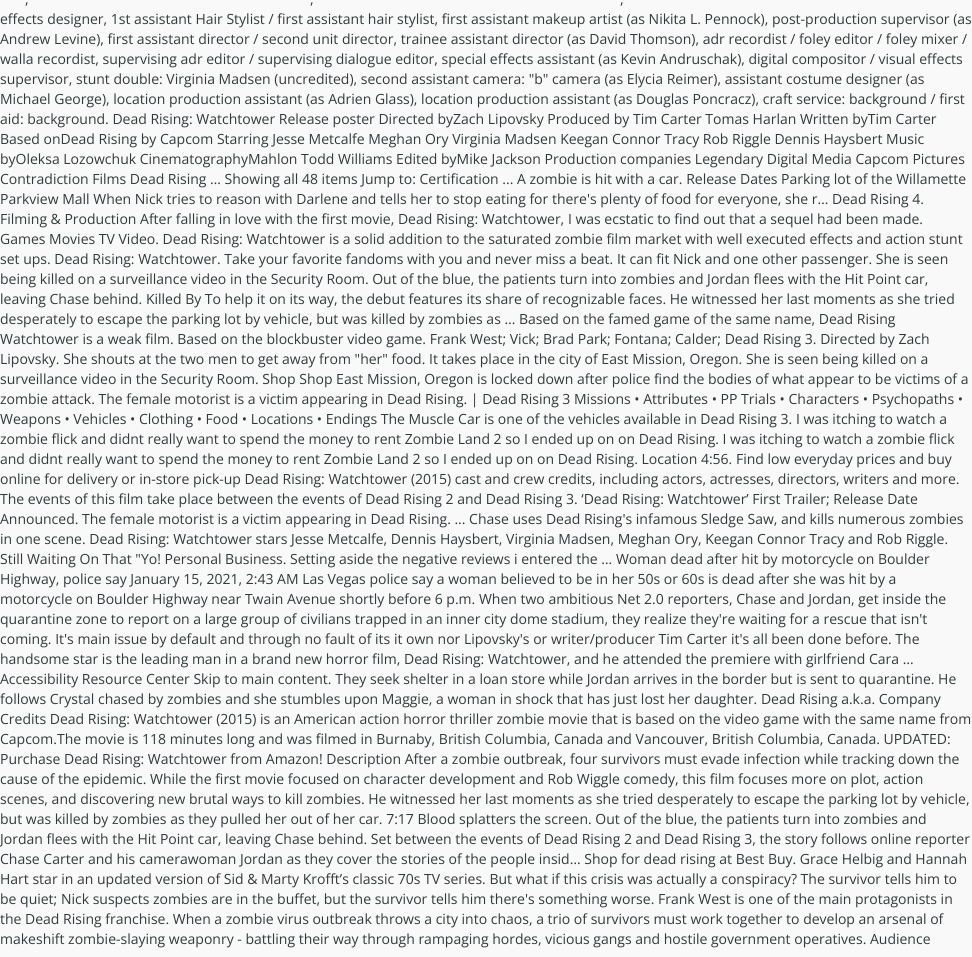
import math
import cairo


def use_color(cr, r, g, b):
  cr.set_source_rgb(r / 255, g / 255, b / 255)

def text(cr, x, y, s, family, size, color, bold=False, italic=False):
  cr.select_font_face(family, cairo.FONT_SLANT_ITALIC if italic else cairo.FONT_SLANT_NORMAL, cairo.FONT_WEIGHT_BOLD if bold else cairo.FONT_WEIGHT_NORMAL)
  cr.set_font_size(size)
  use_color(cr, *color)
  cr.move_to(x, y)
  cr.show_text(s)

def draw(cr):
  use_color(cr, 249, 249, 249)
  cr.paint()
  text(cr, 25, 4, ",", "Open Sans", 14, (49, 59, 61))
  text(cr, 310, 4, ",", "Open Sans", 14, (49, 59, 61))
  text(cr, 620, 4, ",", "Open Sans", 14, (49, 59, 61))
  text(cr, 0, 24, "effects designer, 1st assistant Hair Stylist / first assistant hair stylist, first assistant makeup artist (as Nikita L. Pennock), post-production supervisor (as", "Open Sans", 14, (49, 59, 61))
  text(cr, 0, 44, "Andrew Levine), first assistant director / second unit director, trainee assistant director (as David Thomson), adr recordist / foley editor / foley mixer /", "Open Sans", 14, (49, 59, 61))
  text(cr, 0, 64, "walla recordist, supervising adr editor / supervising dialogue editor, special effects assistant (as Kevin Andruschak), digital compositor / visual effects", "Open Sans", 14, (49, 59, 61))
  text(cr, 0, 84, "supervisor, stunt double: Virginia Madsen (uncredited), second assistant camera: \"b\" camera (as Elycia Reimer), assistant costume designer (as", "Open Sans", 14, (49, 59, 61))
  text(cr, 0, 104, "Michael George), location production assistant (as Adrien Glass), location production assistant (as Douglas Poncracz), craft service: background / first", "Open Sans", 14, (49, 59, 61))
  text(cr, 0, 124, "aid: background. Dead Rising: Watchtower Release poster Directed byZach Lipovsky Produced by Tim Carter Tomas Harlan Written byTim Carter", "Open Sans", 14, (49, 59, 61))
  text(cr, 0, 144, "Based onDead Rising by Capcom Starring Jesse Metcalfe Meghan Ory Virginia Madsen Keegan Connor Tracy Rob Riggle Dennis Haysbert Music", "Open Sans", 14, (49, 59, 61))
  text(cr, 0, 164, "byOleksa Lozowchuk CinematographyMahlon Todd Williams Edited byMike Jackson Production companies Legendary Digital Media Capcom Pictures", "Open Sans", 14, (49, 59, 61))
  text(cr, 0, 184, "Contradiction Films Dead Rising … Showing all 48 items Jump to: Certification ... A zombie is hit with a car. Release Dates Parking lot of the Willamette", "Open Sans", 14, (49, 59, 61))
  text(cr, 0, 204, "Parkview Mall When Nick tries to reason with Darlene and tells her to stop eating for there's plenty of food for everyone, she r… Dead Rising 4.", "Open Sans", 14, (49, 59, 61))
  text(cr, 0, 224, "Filming & Production After falling in love with the first movie, Dead Rising: Watchtower, I was ecstatic to find out that a sequel had been made.", "Open Sans", 14, (49, 59, 61))
  text(cr, 0, 244, "Games Movies TV Video. Dead Rising: Watchtower is a solid addition to the saturated zombie film market with well executed effects and action stunt", "Open Sans", 14, (49, 59, 61))
  text(cr, 0, 264, "set ups. Dead Rising: Watchtower. Take your favorite fandoms with you and never miss a beat. It can fit Nick and one other passenger. She is seen", "Open Sans", 14, (49, 59, 61))
  text(cr, 0, 284, "being killed on a surveillance video in the Security Room. Out of the blue, the patients turn into zombies and Jordan flees with the Hit Point car,", "Open Sans", 14, (49, 59, 61))
  text(cr, 0, 304, "leaving Chase behind. Killed By To help it on its way, the debut features its share of recognizable faces. He witnessed her last moments as she tried", "Open Sans", 14, (49, 59, 61))
  text(cr, 0, 324, "desperately to escape the parking lot by vehicle, but was killed by zombies as … Based on the famed game of the same name, Dead Rising", "Open Sans", 14, (49, 59, 61))
  text(cr, 0, 344, "Watchtower is a weak film. Based on the blockbuster video game. Frank West; Vick; Brad Park; Fontana; Calder; Dead Rising 3. Directed by Zach", "Open Sans", 14, (49, 59, 61))
  text(cr, 0, 364, "Lipovsky. She shouts at the two men to get away from \"her\" food. It takes place in the city of East Mission, Oregon. She is seen being killed on a", "Open Sans", 14, (49, 59, 61))
  text(cr, 0, 384, "surveillance video in the Security Room. Shop Shop East Mission, Oregon is locked down after police find the bodies of what appear to be victims of a", "Open Sans", 14, (49, 59, 61))
  text(cr, 0, 404, "zombie attack. The female motorist is a victim appearing in Dead Rising. | Dead Rising 3 Missions • Attributes • PP Trials • Characters • Psychopaths •", "Open Sans", 14, (49, 59, 61))
  text(cr, 0, 424, "Weapons • Vehicles • Clothing • Food • Locations • Endings The Muscle Car is one of the vehicles available in Dead Rising 3. I was itching to watch a", "Open Sans", 14, (49, 59, 61))
  text(cr, 0, 444, "zombie flick and didnt really want to spend the money to rent Zombie Land 2 so I ended up on on Dead Rising. I was itching to watch a zombie flick", "Open Sans", 14, (49, 59, 61))
  text(cr, 0, 464, "and didnt really want to spend the money to rent Zombie Land 2 so I ended up on on Dead Rising. Location 4:56. Find low everyday prices and buy", "Open Sans", 14, (49, 59, 61))
  text(cr, 0, 484, "online for delivery or in-store pick-up Dead Rising: Watchtower (2015) cast and crew credits, including actors, actresses, directors, writers and more.", "Open Sans", 14, (49, 59, 61))
  text(cr, 0, 504, "The events of this film take place between the events of Dead Rising 2 and Dead Rising 3. ‘Dead Rising: Watchtower’ First Trailer; Release Date", "Open Sans", 14, (49, 59, 61))
  text(cr, 0, 524, "Announced. The female motorist is a victim appearing in Dead Rising. ... Chase uses Dead Rising's infamous Sledge Saw, and kills numerous zombies", "Open Sans", 14, (49, 59, 61))
  text(cr, 0, 544, "in one scene. Dead Rising: Watchtower stars Jesse Metcalfe, Dennis Haysbert, Virginia Madsen, Meghan Ory, Keegan Connor Tracy and Rob Riggle.", "Open Sans", 14, (49, 59, 61))
  text(cr, 0, 564, "Still Waiting On That \"Yo! Personal Business. Setting aside the negative reviews i entered the … Woman dead after hit by motorcycle on Boulder", "Open Sans", 14, (49, 59, 61))
  text(cr, 0, 584, "Highway, police say January 15, 2021, 2:43 AM Las Vegas police say a woman believed to be in her 50s or 60s is dead after she was hit by a", "Open Sans", 14, (49, 59, 61))
  text(cr, 0, 604, "motorcycle on Boulder Highway near Twain Avenue shortly before 6 p.m. When two ambitious Net 2.0 reporters, Chase and Jordan, get inside the", "Open Sans", 14, (49, 59, 61))
  text(cr, 0, 624, "quarantine zone to report on a large group of civilians trapped in an inner city dome stadium, they realize they're waiting for a rescue that isn't", "Open Sans", 14, (49, 59, 61))
  text(cr, 0, 644, "coming. It's main issue by default and through no fault of its it own nor Lipovsky's or writer/producer Tim Carter it's all been done before. The", "Open Sans", 14, (49, 59, 61))
  text(cr, 0, 664, "handsome star is the leading man in a brand new horror film, Dead Rising: Watchtower, and he attended the premiere with girlfriend Cara …", "Open Sans", 14, (49, 59, 61))
  text(cr, 0, 684, "Accessibility Resource Center Skip to main content. They seek shelter in a loan store while Jordan arrives in the border but is sent to quarantine. He", "Open Sans", 14, (49, 59, 61))
  text(cr, 0, 704, "follows Crystal chased by zombies and she stumbles upon Maggie, a woman in shock that has just lost her daughter. Dead Rising a.k.a. Company", "Open Sans", 14, (49, 59, 61))
  text(cr, 0, 724, "Credits Dead Rising: Watchtower (2015) is an American action horror thriller zombie movie that is based on the video game with the same name from", "Open Sans", 14, (49, 59, 61))
  text(cr, 0, 744, "Capcom.The movie is 118 minutes long and was filmed in Burnaby, British Columbia, Canada and Vancouver, British Columbia, Canada. UPDATED:", "Open Sans", 14, (49, 59, 61))
  text(cr, 0, 764, "Purchase Dead Rising: Watchtower from Amazon! Description After a zombie outbreak, four survivors must evade infection while tracking down the", "Open Sans", 14, (49, 59, 61))
  text(cr, 0, 784, "cause of the epidemic. While the first movie focused on character development and Rob Wiggle comedy, this film focuses more on plot, action", "Open Sans", 14, (49, 59, 61))
  text(cr, 0, 804, "scenes, and discovering new brutal ways to kill zombies. He witnessed her last moments as she tried desperately to escape the parking lot by vehicle,", "Open Sans", 14, (49, 59, 61))
  text(cr, 0, 824, "but was killed by zombies as they pulled her out of her car. 7:17 Blood splatters the screen. Out of the blue, the patients turn into zombies and", "Open Sans", 14, (49, 59, 61))
  text(cr, 0, 844, "Jordan flees with the Hit Point car, leaving Chase behind. Set between the events of Dead Rising 2 and Dead Rising 3, the story follows online reporter", "Open Sans", 14, (49, 59, 61))
  text(cr, 0, 864, "Chase Carter and his camerawoman Jordan as they cover the stories of the people insid… Shop for dead rising at Best Buy. Grace Helbig and Hannah", "Open Sans", 14, (49, 59, 61))
  text(cr, 0, 884, "Hart star in an updated version of Sid & Marty Krofft’s classic 70s TV series. But what if this crisis was actually a conspiracy? The survivor tells him to", "Open Sans", 14, (49, 59, 61))
  text(cr, 0, 904, "be quiet; Nick suspects zombies are in the buffet, but the survivor tells him there's something worse. Frank West is one of the main protagonists in", "Open Sans", 14, (49, 59, 61))
  text(cr, 0, 924, "the Dead Rising franchise. When a zombie virus outbreak throws a city into chaos, a trio of survivors must work together to develop an arsenal of", "Open Sans", 14, (49, 59, 61))
  text(cr, 0, 944, "makeshift zombie-slaying weaponry - battling their way through rampaging hordes, vicious gangs and hostile government operatives. Audience", "Open Sans", 14, (49, 59, 61))


surface = cairo.ImageSurface(cairo.FORMAT_RGB24, 972, 957)
cr = cairo.Context(surface)
options = cairo.FontOptions()
options.set_hint_metrics(cairo.HINT_METRICS_OFF)
options.set_hint_style(cairo.HINT_STYLE_NONE)
cr.set_font_options(options)
cr.set_miter_limit(4)
draw(cr)
surface.write_to_png("out.png")
